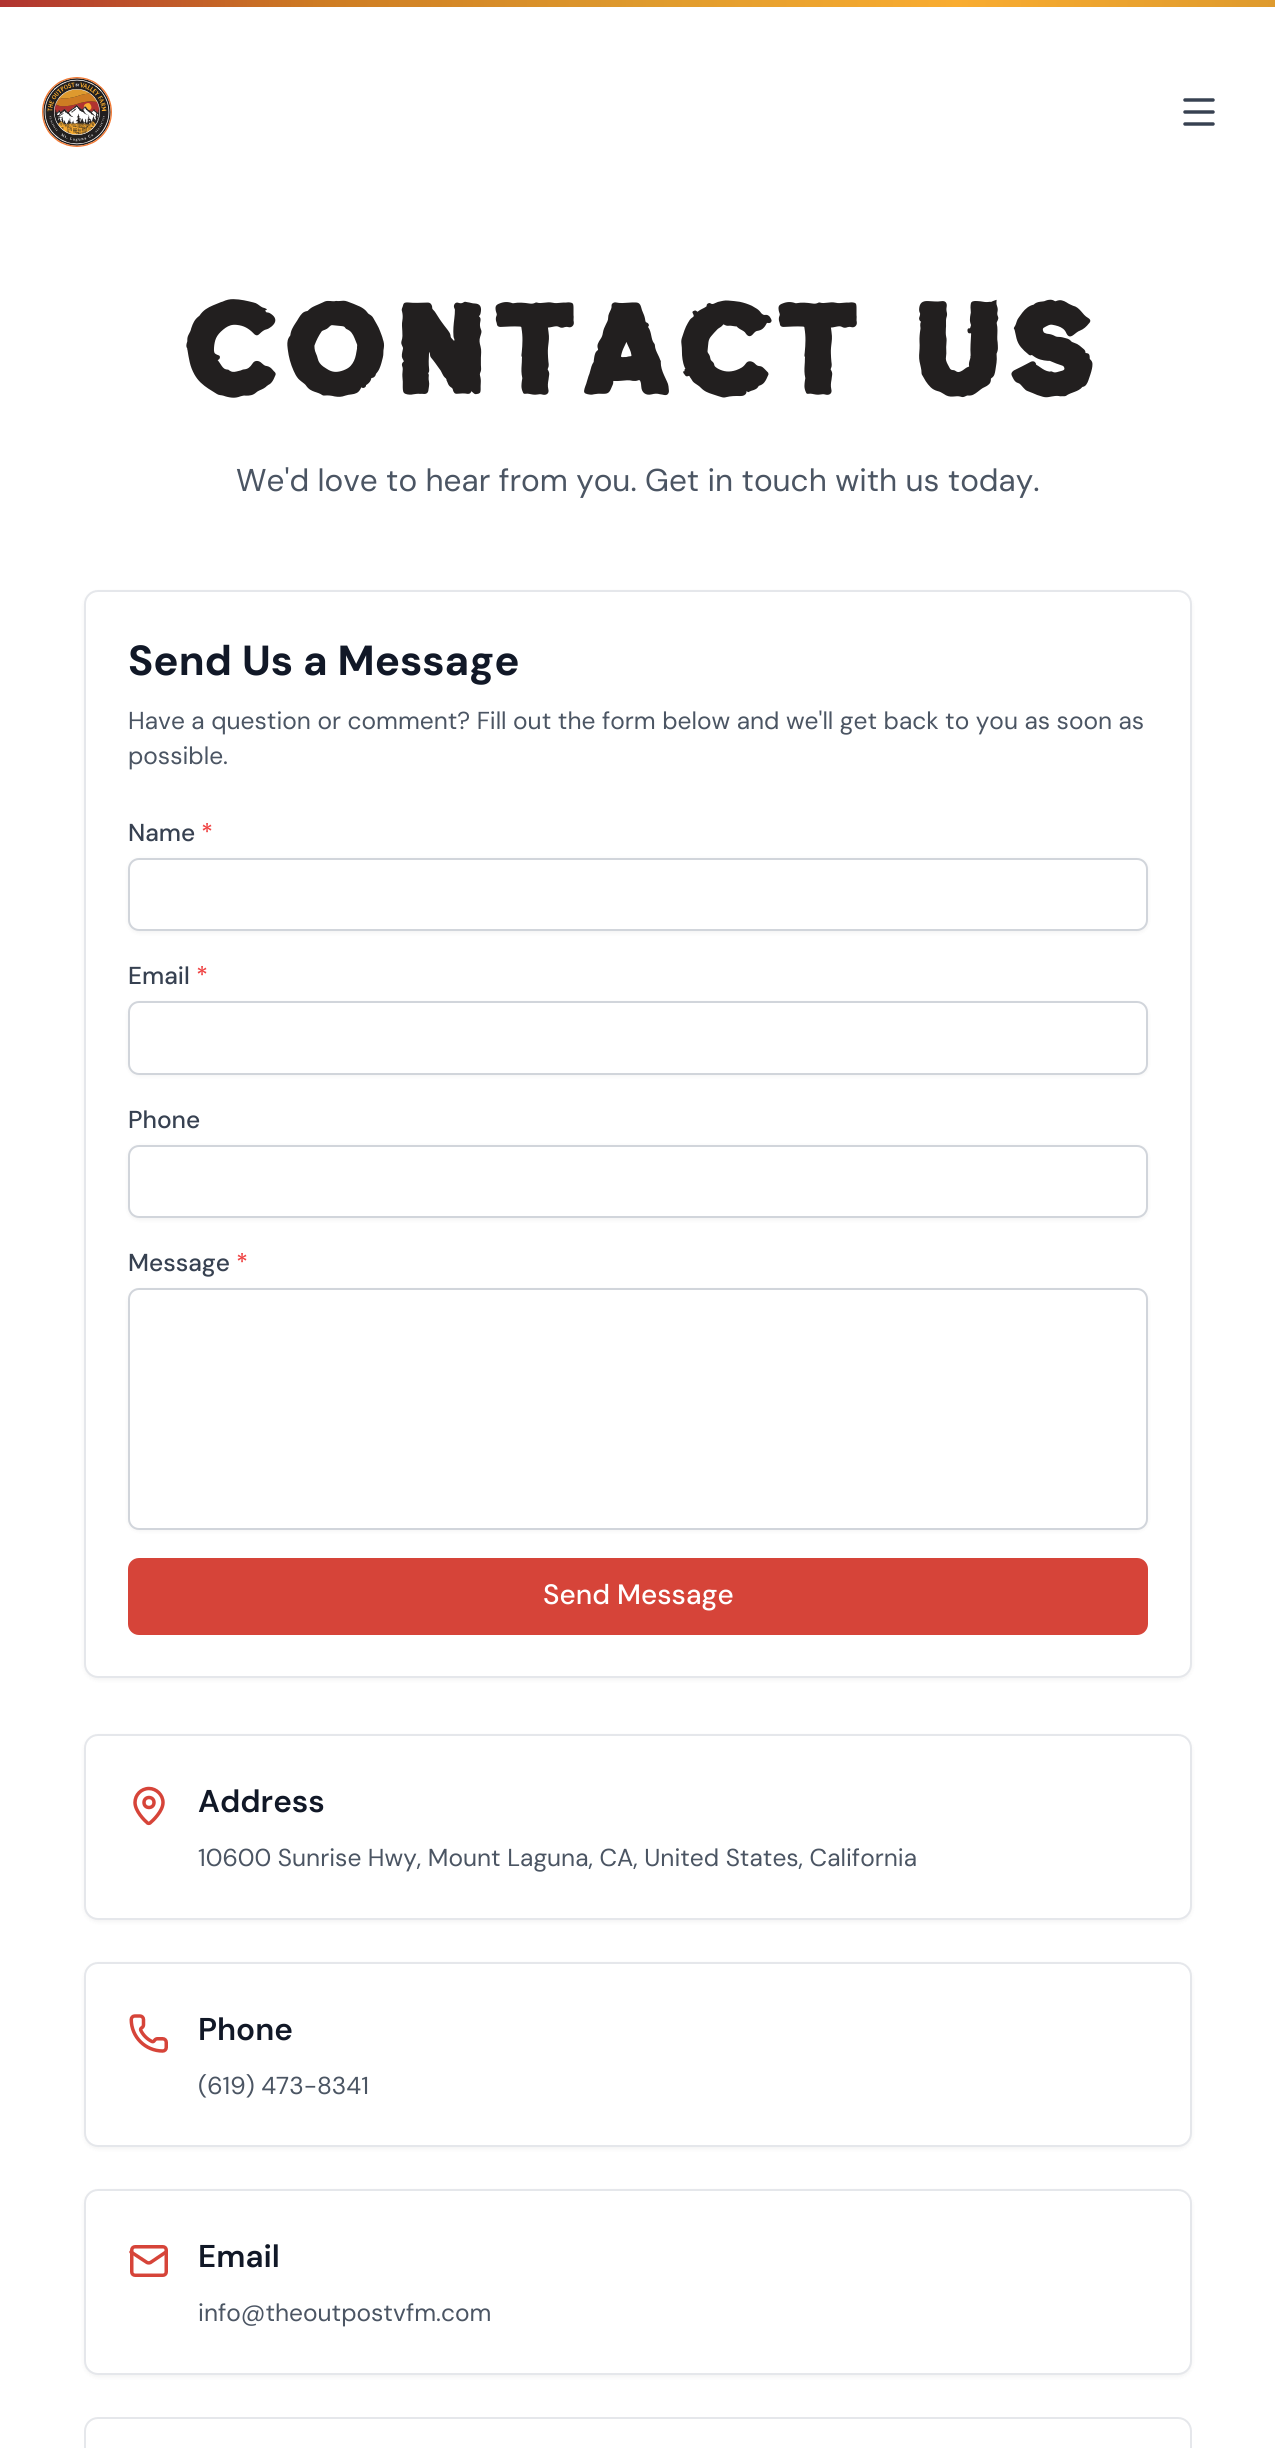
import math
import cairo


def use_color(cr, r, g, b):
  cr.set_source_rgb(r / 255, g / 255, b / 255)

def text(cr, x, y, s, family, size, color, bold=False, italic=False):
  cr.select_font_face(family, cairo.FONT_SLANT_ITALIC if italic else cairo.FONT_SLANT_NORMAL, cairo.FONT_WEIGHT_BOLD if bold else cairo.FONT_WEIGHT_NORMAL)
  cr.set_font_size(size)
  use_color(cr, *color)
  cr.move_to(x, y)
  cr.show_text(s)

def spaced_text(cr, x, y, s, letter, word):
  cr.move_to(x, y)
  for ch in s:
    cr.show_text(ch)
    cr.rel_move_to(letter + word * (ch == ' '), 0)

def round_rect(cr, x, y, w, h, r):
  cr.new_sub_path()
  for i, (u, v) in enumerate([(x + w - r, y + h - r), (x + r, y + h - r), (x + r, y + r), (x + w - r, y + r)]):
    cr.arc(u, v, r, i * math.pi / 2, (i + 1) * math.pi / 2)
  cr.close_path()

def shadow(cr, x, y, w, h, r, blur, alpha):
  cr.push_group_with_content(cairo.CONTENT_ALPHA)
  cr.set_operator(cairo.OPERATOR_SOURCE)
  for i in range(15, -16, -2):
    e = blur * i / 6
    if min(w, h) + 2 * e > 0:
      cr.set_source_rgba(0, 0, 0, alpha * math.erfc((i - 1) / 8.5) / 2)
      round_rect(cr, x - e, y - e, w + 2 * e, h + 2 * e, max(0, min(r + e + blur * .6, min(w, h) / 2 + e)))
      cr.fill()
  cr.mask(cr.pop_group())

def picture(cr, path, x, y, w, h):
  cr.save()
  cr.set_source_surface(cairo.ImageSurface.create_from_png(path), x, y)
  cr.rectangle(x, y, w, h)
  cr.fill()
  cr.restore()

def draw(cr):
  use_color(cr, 255, 255, 255)
  cr.paint()
  gradient = cairo.LinearGradient(0, 3.5, 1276, 3.5)
  gradient.add_color_stop_rgba(0, 0.694, 0.2, 0.188, 1)
  gradient.add_color_stop_rgba(0.25, 0.808, 0.486, 0.137, 1)
  gradient.add_color_stop_rgba(0.5, 0.871, 0.604, 0.18, 1)
  gradient.add_color_stop_rgba(0.75, 0.976, 0.675, 0.188, 1)
  gradient.add_color_stop_rgba(1, 0.871, 0.604, 0.18, 1)
  cr.set_source(gradient)
  cr.rectangle(0, 0, 1275, 7)
  cr.fill()
  picture(cr, "img_01.png", 42, 77, 70, 70)
  cr.new_path()
  cr.move_to(1185, 100)
  cr.line_to(1213, 100)
  cr.move_to(1185, 112)
  cr.line_to(1213, 112)
  cr.move_to(1185, 124)
  cr.line_to(1213, 124)
  use_color(cr, 55, 65, 81)
  cr.set_line_width(3.5)
  cr.set_line_cap(cairo.LINE_CAP_ROUND)
  cr.set_line_join(cairo.LINE_JOIN_ROUND)
  cr.stroke()
  use_color(cr, 0, 0, 0)
  shadow(cr, 84, 592, 1108, 1088, 14, 2, 0.05)
  use_color(cr, 255, 255, 255)
  round_rect(cr, 85, 591, 1106, 1086, 13)
  cr.fill_preserve()
  use_color(cr, 229, 231, 235)
  cr.set_line_width(2)
  cr.set_line_cap(cairo.LINE_CAP_BUTT)
  cr.set_line_join(cairo.LINE_JOIN_MITER)
  cr.stroke()
  use_color(cr, 0, 0, 0)
  shadow(cr, 128, 859, 1020, 74, 11, 2, 0.05)
  use_color(cr, 255, 255, 255)
  round_rect(cr, 129, 859, 1018, 71, 10)
  cr.fill_preserve()
  use_color(cr, 209, 213, 219)
  cr.stroke()
  use_color(cr, 0, 0, 0)
  shadow(cr, 128, 1003, 1020, 73, 11, 2, 0.05)
  use_color(cr, 255, 255, 255)
  round_rect(cr, 129, 1002, 1018, 72, 10)
  cr.fill_preserve()
  use_color(cr, 209, 213, 219)
  cr.stroke()
  use_color(cr, 0, 0, 0)
  shadow(cr, 128, 1146, 1020, 74, 11, 2, 0.05)
  use_color(cr, 255, 255, 255)
  round_rect(cr, 129, 1146, 1018, 71, 10)
  cr.fill_preserve()
  use_color(cr, 209, 213, 219)
  cr.stroke()
  use_color(cr, 0, 0, 0)
  shadow(cr, 128, 1290, 1020, 241, 11, 2, 0.05)
  use_color(cr, 255, 255, 255)
  round_rect(cr, 129, 1289, 1018, 240, 10)
  cr.fill_preserve()
  use_color(cr, 209, 213, 219)
  cr.stroke()
  use_color(cr, 214, 68, 57)
  round_rect(cr, 128, 1558, 1020, 77, 11)
  cr.fill()
  use_color(cr, 0, 0, 0)
  shadow(cr, 84, 1736, 1108, 186, 14, 2, 0.05)
  use_color(cr, 255, 255, 255)
  round_rect(cr, 85, 1735, 1106, 184, 13)
  cr.fill_preserve()
  use_color(cr, 229, 231, 235)
  cr.stroke()
  cr.new_path()
  cr.move_to(163, 1802.5)
  cr.curve_to(163, 1811, 153, 1820.5, 150, 1823)
  cr.curve_to(149, 1823.5, 148.5, 1823.5, 147.5, 1823)
  cr.curve_to(144.5, 1820.5, 135, 1811, 135, 1802.5)
  cr.curve_to(135, 1795, 141, 1788.5, 149, 1788.5)
  cr.curve_to(156.5, 1788.5, 163, 1795, 163, 1802.5)
  use_color(cr, 214, 68, 57)
  cr.set_line_width(3.5)
  cr.set_line_cap(cairo.LINE_CAP_ROUND)
  cr.set_line_join(cairo.LINE_JOIN_ROUND)
  cr.stroke()
  cr.arc(149, 1802.5, 5, 0, 2 * math.pi)
  cr.set_line_cap(cairo.LINE_CAP_BUTT)
  cr.set_line_join(cairo.LINE_JOIN_MITER)
  cr.stroke()
  use_color(cr, 0, 0, 0)
  shadow(cr, 84, 1964, 1108, 185, 14, 2, 0.05)
  use_color(cr, 255, 255, 255)
  round_rect(cr, 85, 1963, 1106, 183, 13)
  cr.fill_preserve()
  use_color(cr, 229, 231, 235)
  cr.set_line_width(2)
  cr.stroke()
  picture(cr, "img_02.png", 129, 2014, 39, 39)
  use_color(cr, 0, 0, 0)
  shadow(cr, 84, 2191, 1108, 186, 14, 2, 0.05)
  use_color(cr, 255, 255, 255)
  round_rect(cr, 85, 2190, 1106, 184, 13)
  cr.fill_preserve()
  use_color(cr, 229, 231, 235)
  cr.stroke()
  cr.new_path()
  cr.move_to(166, 2252)
  cr.line_to(150.5, 2262.5)
  cr.curve_to(149.5, 2263, 148, 2263, 147, 2262.5)
  cr.line_to(131, 2252)
  use_color(cr, 214, 68, 57)
  cr.set_line_width(3.5)
  cr.set_line_cap(cairo.LINE_CAP_ROUND)
  cr.set_line_join(cairo.LINE_JOIN_ROUND)
  cr.stroke()
  round_rect(cr, 131.75, 2246.75, 34.5, 28.5, 3.25)
  cr.set_line_cap(cairo.LINE_CAP_BUTT)
  cr.set_line_join(cairo.LINE_JOIN_MITER)
  cr.stroke()
  round_rect(cr, 85, 2418, 1106, 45, 13)
  use_color(cr, 229, 231, 235)
  cr.set_line_width(2)
  cr.stroke()
  cr.select_font_face("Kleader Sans", cairo.FONT_SLANT_NORMAL, cairo.FONT_WEIGHT_BOLD)
  cr.set_font_size(127.5)
  use_color(cr, 34, 31, 31)
  spaced_text(cr, 178, 394, "Contact Us", -3.25, 0)
  text(cr, 236, 491, "We'd love to hear from you. Get in touch with us today.", "DM Sans", 31.5, (75, 85, 99))
  text(cr, 128, 675, "Send Us a Message", "DM Sans", 42, (17, 24, 39), bold=True)
  text(cr, 128, 729, "Have a question or comment? Fill out the form below and we'll get back to you as soon as", "DM Sans", 24.5, (75, 85, 99))
  text(cr, 128, 764, "possible.", "DM Sans", 24.5, (75, 85, 99))
  text(cr, 128, 841, "Name", "DM Sans Medium", 24.5, (55, 65, 81))
  text(cr, 201, 841, "*", "DM Sans Medium", 24.5, (239, 68, 68))
  text(cr, 128, 984, "Email", "DM Sans Medium", 24.5, (55, 65, 81))
  text(cr, 196, 984, "*", "DM Sans Medium", 24.5, (239, 68, 68))
  text(cr, 128, 1128, "Phone", "DM Sans Medium", 24.5, (55, 65, 81))
  text(cr, 128, 1271, "Message", "DM Sans Medium", 24.5, (55, 65, 81))
  text(cr, 236, 1271, "*", "DM Sans Medium", 24.5, (239, 68, 68))
  text(cr, 543, 1604, "Send Message", "DM Sans Medium", 28, (255, 255, 255))
  text(cr, 198, 1812, "Address", "DM Sans SemiBold", 31.5, (17, 24, 39))
  text(cr, 198, 1866, "10600 Sunrise Hwy, Mount Laguna, CA, United States, California", "DM Sans", 24.5, (75, 85, 99))
  text(cr, 198, 2040, "Phone", "DM Sans SemiBold", 31.5, (17, 24, 39))
  text(cr, 198, 2094, "(619) 473-8341", "DM Sans", 24.5, (75, 85, 99))
  text(cr, 198, 2267, "Email", "DM Sans SemiBold", 31.5, (17, 24, 39))
  text(cr, 198, 2321, "info@theoutpostvfm.com", "DM Sans", 24.5, (75, 85, 99))


surface = cairo.ImageSurface(cairo.FORMAT_RGB24, 1275, 2448)
cr = cairo.Context(surface)
options = cairo.FontOptions()
options.set_hint_metrics(cairo.HINT_METRICS_OFF)
options.set_hint_style(cairo.HINT_STYLE_NONE)
cr.set_font_options(options)
cr.set_miter_limit(4)
draw(cr)
surface.write_to_png("out.png")
